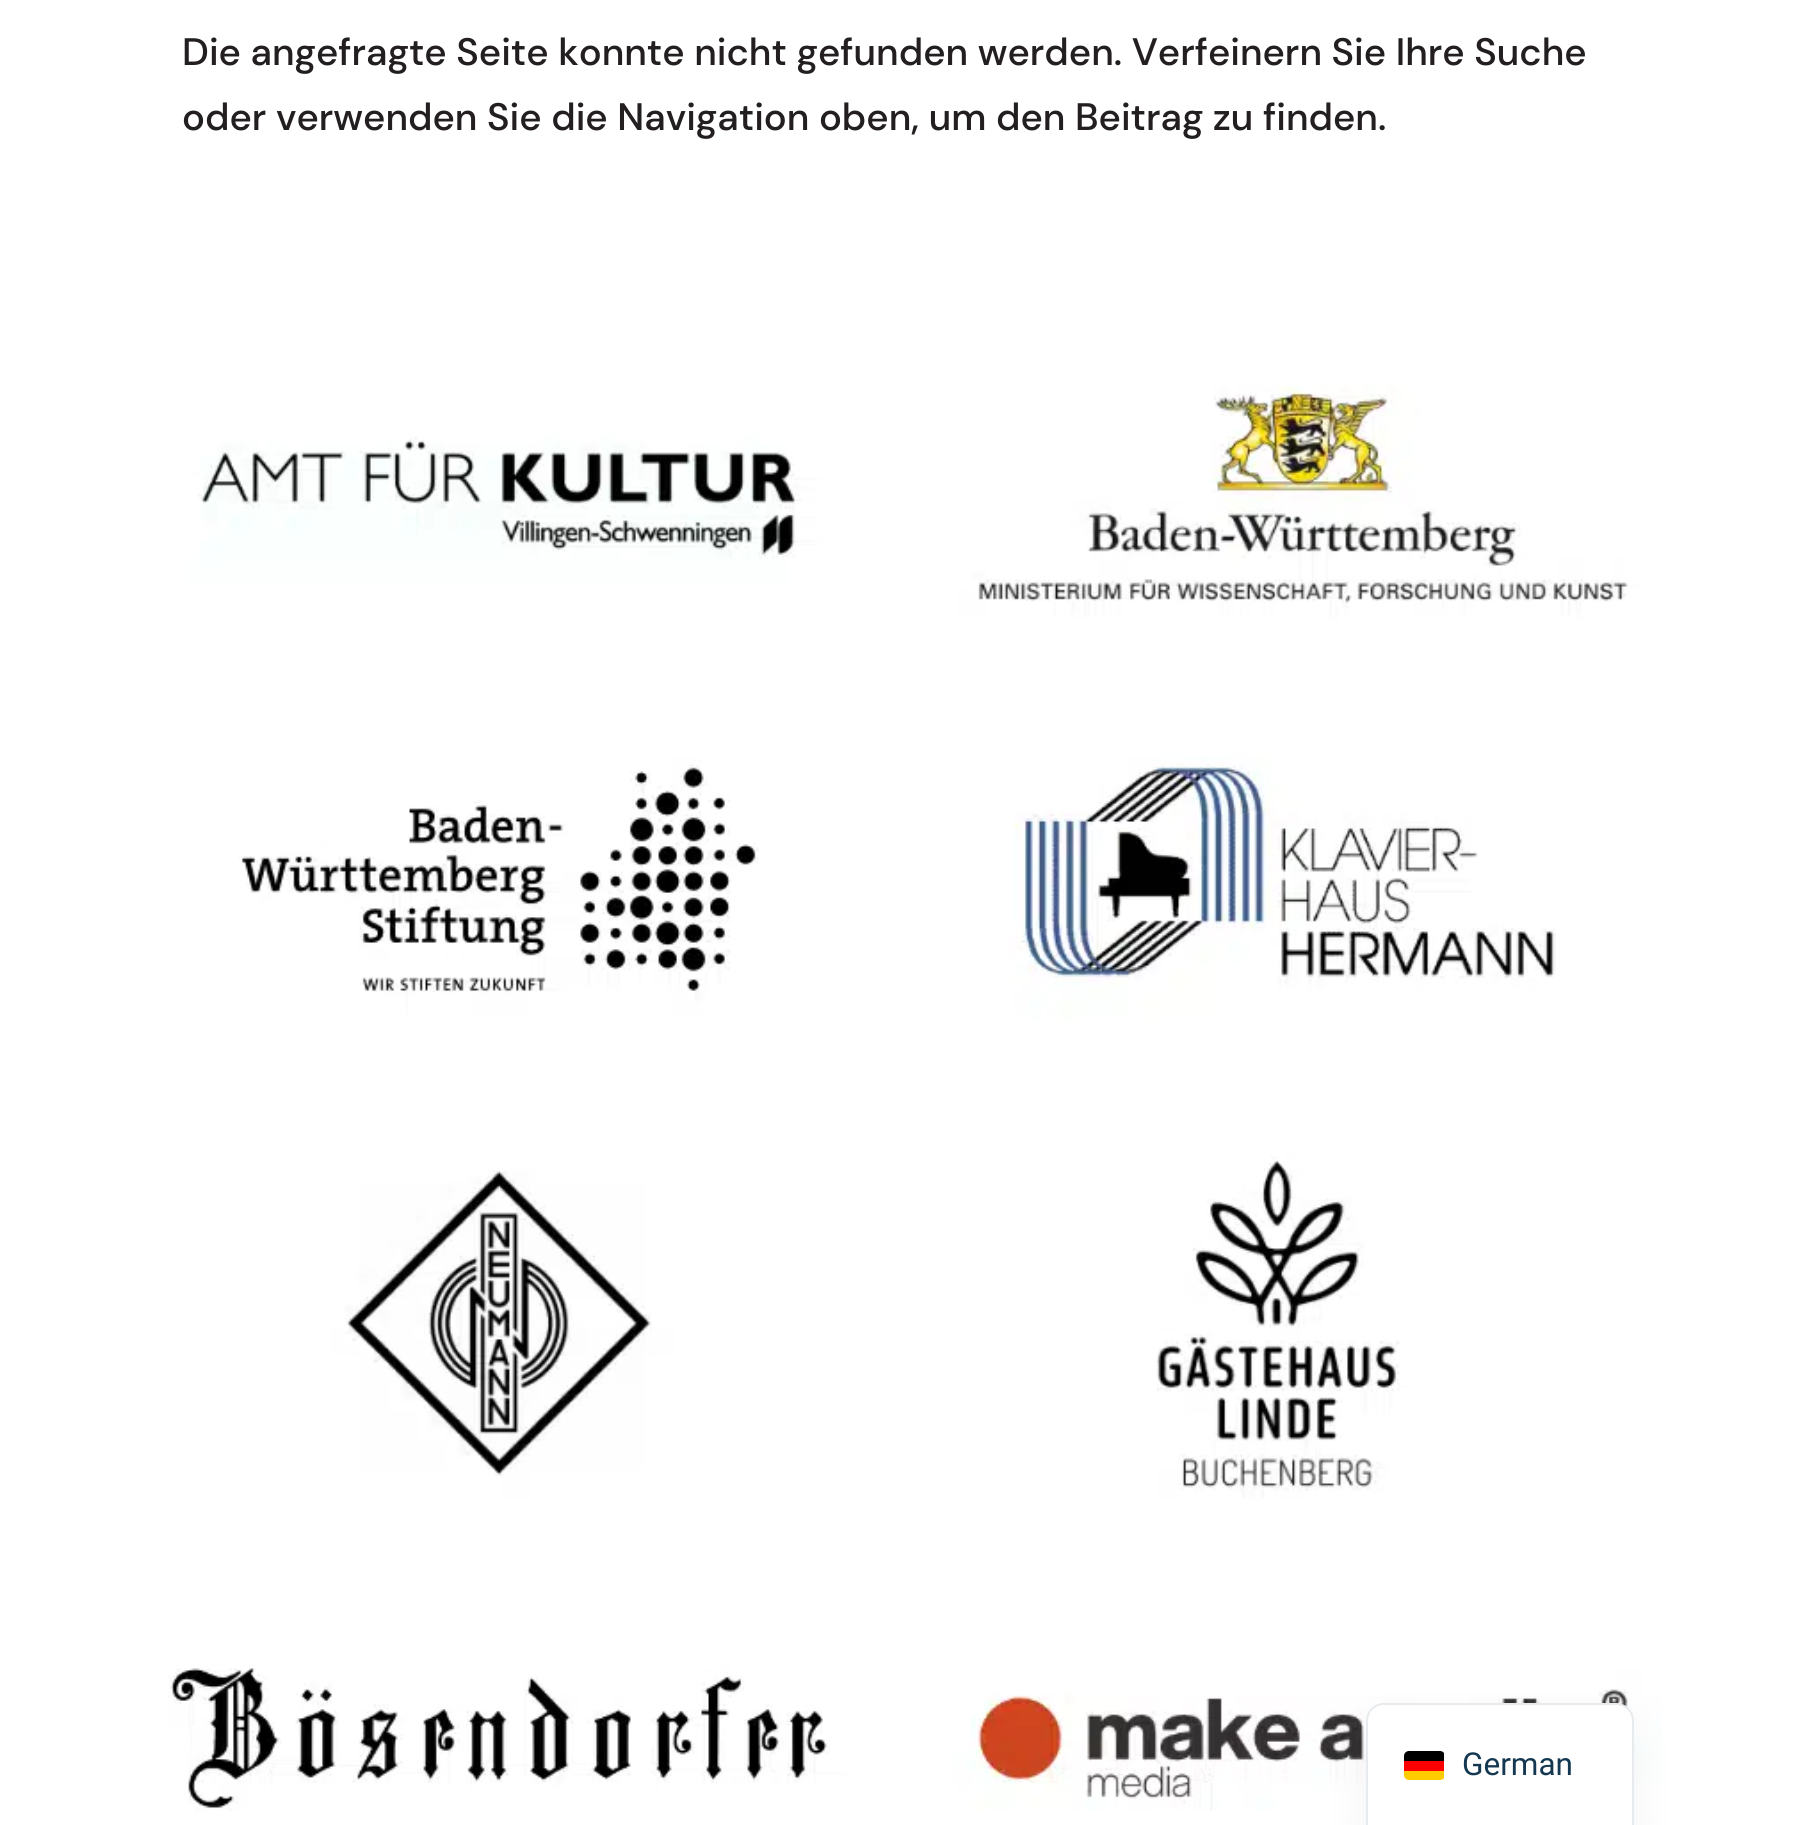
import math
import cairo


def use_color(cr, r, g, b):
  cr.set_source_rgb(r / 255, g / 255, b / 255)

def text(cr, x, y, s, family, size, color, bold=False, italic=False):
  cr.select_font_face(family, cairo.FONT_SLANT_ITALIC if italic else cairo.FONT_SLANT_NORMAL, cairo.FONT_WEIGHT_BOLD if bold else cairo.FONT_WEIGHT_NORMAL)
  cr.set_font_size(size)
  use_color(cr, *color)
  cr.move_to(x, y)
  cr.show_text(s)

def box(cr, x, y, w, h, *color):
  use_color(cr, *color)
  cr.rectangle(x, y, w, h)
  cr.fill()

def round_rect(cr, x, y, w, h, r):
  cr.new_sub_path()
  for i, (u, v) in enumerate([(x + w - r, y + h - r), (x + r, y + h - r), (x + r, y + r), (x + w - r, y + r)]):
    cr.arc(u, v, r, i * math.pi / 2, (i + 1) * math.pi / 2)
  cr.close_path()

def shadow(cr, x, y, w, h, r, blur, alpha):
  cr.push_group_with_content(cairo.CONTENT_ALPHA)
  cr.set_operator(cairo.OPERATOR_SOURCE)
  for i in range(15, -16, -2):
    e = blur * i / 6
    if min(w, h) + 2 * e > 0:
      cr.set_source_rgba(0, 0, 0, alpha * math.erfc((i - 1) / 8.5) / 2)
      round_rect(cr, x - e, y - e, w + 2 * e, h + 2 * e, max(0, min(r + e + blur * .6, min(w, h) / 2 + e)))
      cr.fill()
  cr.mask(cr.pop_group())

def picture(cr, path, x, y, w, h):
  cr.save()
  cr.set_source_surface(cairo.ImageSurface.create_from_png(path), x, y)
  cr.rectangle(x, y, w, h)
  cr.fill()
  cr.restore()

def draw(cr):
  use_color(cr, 255, 255, 255)
  cr.paint()
  picture(cr, "img_01.png", 168, 386, 1494, 1425)
  use_color(cr, 0, 0, 0)
  shadow(cr, 1366, 1726, 268, 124, 18, 22.5, 0.05)
  use_color(cr, 255, 255, 255)
  cr.new_path()
  cr.move_to(1384, 1703)
  cr.line_to(1616, 1703)
  cr.curve_to(1626, 1703, 1634, 1711, 1634, 1721)
  cr.line_to(1634, 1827)
  cr.line_to(1366, 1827)
  cr.line_to(1366, 1721)
  cr.curve_to(1366, 1711, 1374, 1703, 1384, 1703)
  cr.close_path()
  cr.fill()
  cr.new_path()
  cr.move_to(1384, 1704)
  cr.line_to(1616, 1704)
  cr.curve_to(1625.5, 1704, 1633, 1711.5, 1633, 1721)
  cr.line_to(1633, 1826)
  cr.line_to(1367, 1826)
  cr.line_to(1367, 1721)
  cr.curve_to(1367, 1711.5, 1374.5, 1704, 1384, 1704)
  cr.close_path()
  cr.set_source_rgba(0.078, 0.22, 0.322, 0.1)
  cr.stroke()
  cr.save()
  round_rect(cr, 1404, 1751, 41, 29, 5)
  cr.clip()
  use_color(cr, 255, 204, 0)
  cr.new_path()
  cr.move_to(1404, 1771)
  cr.line_to(1444, 1771)
  cr.line_to(1444, 1780)
  cr.line_to(1409, 1780)
  cr.curve_to(1406, 1780, 1404, 1778, 1404, 1775)
  cr.close_path()
  cr.fill()
  use_color(cr, 0, 0, 1)
  cr.new_path()
  cr.move_to(1409, 1751)
  cr.line_to(1444, 1751)
  cr.line_to(1444, 1761)
  cr.line_to(1404, 1761)
  cr.line_to(1404, 1756)
  cr.curve_to(1404, 1753, 1406, 1751, 1409, 1751)
  cr.close_path()
  cr.fill()
  cr.restore()
  box(cr, 1404, 1761, 40, 10, 255, 0, 0)
  text(cr, 182, 65, "Die angefragte Seite konnte nicht gefunden werden. Verfeinern Sie Ihre Suche", "DM Sans Medium", 38.25, (35, 31, 32))
  text(cr, 182, 130, "oder verwenden Sie die Navigation oben, um den Beitrag zu finden.", "DM Sans Medium", 38.25, (35, 31, 32))
  text(cr, 1462, 1775, "German", "Roboto", 31.5, (20, 56, 82))


surface = cairo.ImageSurface(cairo.FORMAT_RGB24, 1814, 1825)
cr = cairo.Context(surface)
options = cairo.FontOptions()
options.set_hint_metrics(cairo.HINT_METRICS_OFF)
options.set_hint_style(cairo.HINT_STYLE_NONE)
cr.set_font_options(options)
cr.set_miter_limit(4)
draw(cr)
surface.write_to_png("out.png")
